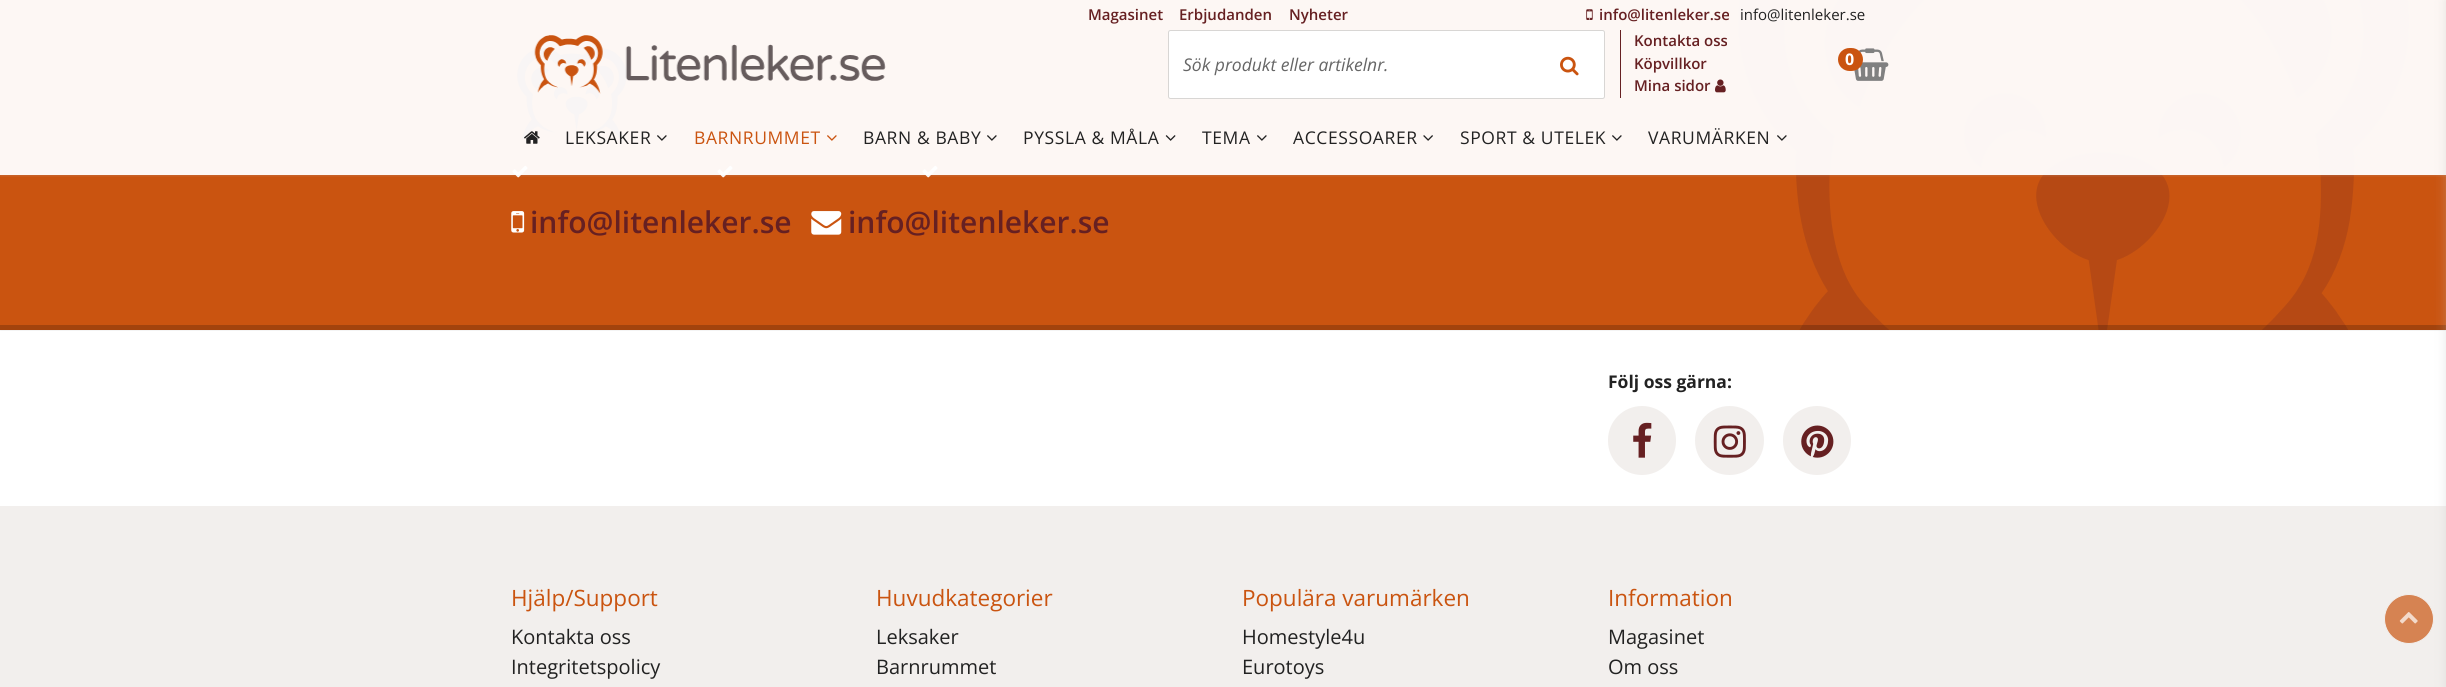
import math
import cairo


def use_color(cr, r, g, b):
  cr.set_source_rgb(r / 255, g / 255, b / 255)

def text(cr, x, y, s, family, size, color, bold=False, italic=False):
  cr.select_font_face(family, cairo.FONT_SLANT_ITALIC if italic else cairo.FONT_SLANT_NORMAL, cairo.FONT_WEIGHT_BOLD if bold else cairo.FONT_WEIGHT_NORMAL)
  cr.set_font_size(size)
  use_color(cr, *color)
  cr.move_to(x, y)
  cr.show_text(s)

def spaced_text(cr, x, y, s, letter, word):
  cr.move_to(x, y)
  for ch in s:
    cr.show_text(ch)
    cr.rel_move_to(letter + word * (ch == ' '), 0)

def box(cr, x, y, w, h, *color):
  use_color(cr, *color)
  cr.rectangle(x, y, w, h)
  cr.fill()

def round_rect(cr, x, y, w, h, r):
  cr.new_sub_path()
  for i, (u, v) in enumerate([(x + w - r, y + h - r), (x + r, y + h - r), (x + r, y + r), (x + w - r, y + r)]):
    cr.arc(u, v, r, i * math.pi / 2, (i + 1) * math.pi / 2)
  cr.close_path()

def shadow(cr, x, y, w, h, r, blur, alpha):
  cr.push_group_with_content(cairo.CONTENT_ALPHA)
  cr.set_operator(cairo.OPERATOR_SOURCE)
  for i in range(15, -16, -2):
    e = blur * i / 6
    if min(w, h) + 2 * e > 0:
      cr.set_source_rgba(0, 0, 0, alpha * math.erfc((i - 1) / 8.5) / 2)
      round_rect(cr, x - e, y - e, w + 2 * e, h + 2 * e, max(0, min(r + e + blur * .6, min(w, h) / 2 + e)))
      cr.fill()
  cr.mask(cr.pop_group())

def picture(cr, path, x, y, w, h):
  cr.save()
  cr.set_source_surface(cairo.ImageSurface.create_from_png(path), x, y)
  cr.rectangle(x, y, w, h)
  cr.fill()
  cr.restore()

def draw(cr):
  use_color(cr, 242, 239, 237)
  cr.paint()
  box(cr, 0, 0, 2446, 330, 202, 84, 16)
  picture(cr, "img_12.png", 1738, 0, 671, 330)
  picture(cr, "img_13.png", 517, 48, 110, 94)
  picture(cr, "img_14.png", 512, 165, 16, 13)
  picture(cr, "img_14.png", 717, 165, 16, 13)
  picture(cr, "img_14.png", 922, 165, 16, 13)
  cr.save()
  cr.rectangle(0, 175, 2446, 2)
  cr.clip()
  use_color(cr, 180, 180, 180)
  shadow(cr, 0, 1, 2446, 175, 0, 1, 0.2)
  cr.restore()
  cr.set_source_rgba(1, 1, 1, 0.95)
  cr.rectangle(0, 0, 2446, 175)
  cr.fill()
  picture(cr, "img_01.png", 1586, 9, 7, 11)
  picture(cr, "img_02.png", 534, 35, 352, 59)
  use_color(cr, 255, 255, 255)
  round_rect(cr, 1168.5, 30.5, 436, 68, 2)
  cr.fill_preserve()
  use_color(cr, 216, 214, 212)
  cr.set_line_width(1)
  cr.stroke()
  picture(cr, "img_03.png", 1560, 56, 19, 20)
  box(cr, 1620, 30, 1, 68, 102, 32, 34)
  picture(cr, "img_04.png", 1715, 79, 11, 14)
  picture(cr, "img_05.png", 1854, 48, 35, 33)
  use_color(cr, 202, 84, 16)
  round_rect(cr, 1838, 48, 25, 23, 11.5)
  cr.fill()
  picture(cr, "img_06.png", 524, 131, 16, 13)
  picture(cr, "img_07.png", 657, 135, 10, 6)
  picture(cr, "img_08.png", 827, 135, 10, 6)
  picture(cr, "img_07.png", 987, 135, 10, 6)
  picture(cr, "img_09.png", 1165, 135, 11, 6)
  picture(cr, "img_07.png", 1257, 135, 10, 6)
  picture(cr, "img_10.png", 1423, 135, 10, 6)
  picture(cr, "img_07.png", 1612, 135, 10, 6)
  picture(cr, "img_11.png", 1777, 135, 10, 6)
  picture(cr, "img_15.png", 511, 211, 14, 22)
  picture(cr, "img_16.png", 811, 211, 31, 24)
  box(cr, 0, 330, 2446, 176, 255, 255, 255)
  cr.save()
  cr.rectangle(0, 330, 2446, 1)
  cr.clip()
  use_color(cr, 0, 0, 0)
  shadow(cr, 0, 326, 2446, 5, 0, 0.5, 0.05)
  cr.restore()
  cr.set_source_rgba(0, 0, 0, 0.2)
  cr.rectangle(0, 325, 2446, 5)
  cr.fill()
  use_color(cr, 242, 239, 237)
  round_rect(cr, 1608, 406, 68, 69, 34)
  cr.fill()
  picture(cr, "img_17.png", 1633, 422, 19, 36)
  cr.arc(1729.5, 440.5, 34.5, 0, 2 * math.pi)
  cr.fill()
  picture(cr, "img_18.png", 1713, 425, 33, 33)
  round_rect(cr, 1783, 406, 68, 69, 34)
  cr.fill()
  picture(cr, "img_19.png", 1801, 425, 33, 33)
  use_color(cr, 214, 131, 82)
  cr.arc(2409, 619, 24.5, 0, 2 * math.pi)
  cr.fill_preserve()
  use_color(cr, 242, 239, 237)
  cr.stroke()
  use_color(cr, 191, 191, 191)
  shadow(cr, 2446, 0, 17, 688, 0, 5.5, 0.36)
  picture(cr, "img_20.png", 2399, 612, 19, 12)
  text(cr, 1088, 20, "Magasinet", "Open Sans SemiBold", 15, (102, 32, 34))
  text(cr, 1179, 20, "Erbjudanden", "Open Sans SemiBold", 15, (102, 32, 34))
  text(cr, 1289, 20, "Nyheter", "Open Sans SemiBold", 15, (102, 32, 34))
  text(cr, 1599, 20, "info@litenleker.se", "Open Sans SemiBold", 15, (102, 32, 34))
  text(cr, 1740, 20, "info@litenleker.se", "Open Sans", 15, (34, 34, 34))
  text(cr, 1183, 71, "Sök produkt eller artikelnr.", "Open Sans", 17.5, (102, 102, 102), italic=True)
  text(cr, 1634, 46, "Kontakta oss", "Open Sans SemiBold", 15, (102, 32, 34))
  text(cr, 1634, 69, "Köpvillkor", "Open Sans SemiBold", 15, (102, 32, 34))
  text(cr, 1634, 91, "Mina sidor", "Open Sans SemiBold", 15, (102, 32, 34))
  text(cr, 1845, 65, "0", "Open Sans", 16, (255, 255, 255), bold=True)
  cr.select_font_face("Open Sans")
  cr.set_font_size(17.5)
  use_color(cr, 34, 34, 34)
  spaced_text(cr, 565, 144, "LEKSAKER", 0.6, 0)
  use_color(cr, 202, 84, 16)
  spaced_text(cr, 694, 144, "BARNRUMMET", 0.6, 0)
  use_color(cr, 34, 34, 34)
  spaced_text(cr, 863, 144, "BARN & BABY", 0.6, 0)
  spaced_text(cr, 1023, 144, "PYSSLA & MÅLA", 0.6, 0)
  spaced_text(cr, 1202, 144, "TEMA", 0.6, 0)
  spaced_text(cr, 1293, 144, "ACCESSOARER", 0.6, 0)
  spaced_text(cr, 1460, 144, "SPORT & UTELEK", 0.6, 0)
  spaced_text(cr, 1648, 144, "VARUMÄRKEN", 0.6, 0)
  text(cr, 530, 233, "info@litenleker.se", "Open Sans SemiBold", 30, (102, 32, 34))
  text(cr, 848, 233, "info@litenleker.se", "Open Sans SemiBold", 30, (102, 32, 34))
  text(cr, 1608, 388, "Följ oss gärna:", "Open Sans", 17.5, (34, 34, 34), bold=True)
  text(cr, 511, 606, "Hjälp/Support", "Open Sans", 22.5, (202, 84, 16))
  text(cr, 511, 644, "Kontakta oss", "Open Sans", 20, (34, 34, 34))
  text(cr, 511, 674, "Integritetspolicy", "Open Sans", 20, (34, 34, 34))
  text(cr, 876, 606, "Huvudkategorier", "Open Sans", 22.5, (202, 84, 16))
  text(cr, 876, 644, "Leksaker", "Open Sans", 20, (34, 34, 34))
  text(cr, 876, 674, "Barnrummet", "Open Sans", 20, (34, 34, 34))
  text(cr, 1242, 606, "Populära varumärken", "Open Sans", 22.5, (202, 84, 16))
  text(cr, 1242, 644, "Homestyle4u", "Open Sans", 20, (34, 34, 34))
  text(cr, 1242, 674, "Eurotoys", "Open Sans", 20, (34, 34, 34))
  text(cr, 1608, 606, "Information", "Open Sans", 22.5, (202, 84, 16))
  text(cr, 1608, 644, "Magasinet", "Open Sans", 20, (34, 34, 34))
  text(cr, 1608, 674, "Om oss", "Open Sans", 20, (34, 34, 34))


surface = cairo.ImageSurface(cairo.FORMAT_RGB24, 2446, 687)
cr = cairo.Context(surface)
options = cairo.FontOptions()
options.set_hint_metrics(cairo.HINT_METRICS_OFF)
options.set_hint_style(cairo.HINT_STYLE_NONE)
cr.set_font_options(options)
cr.set_miter_limit(4)
draw(cr)
surface.write_to_png("out.png")
